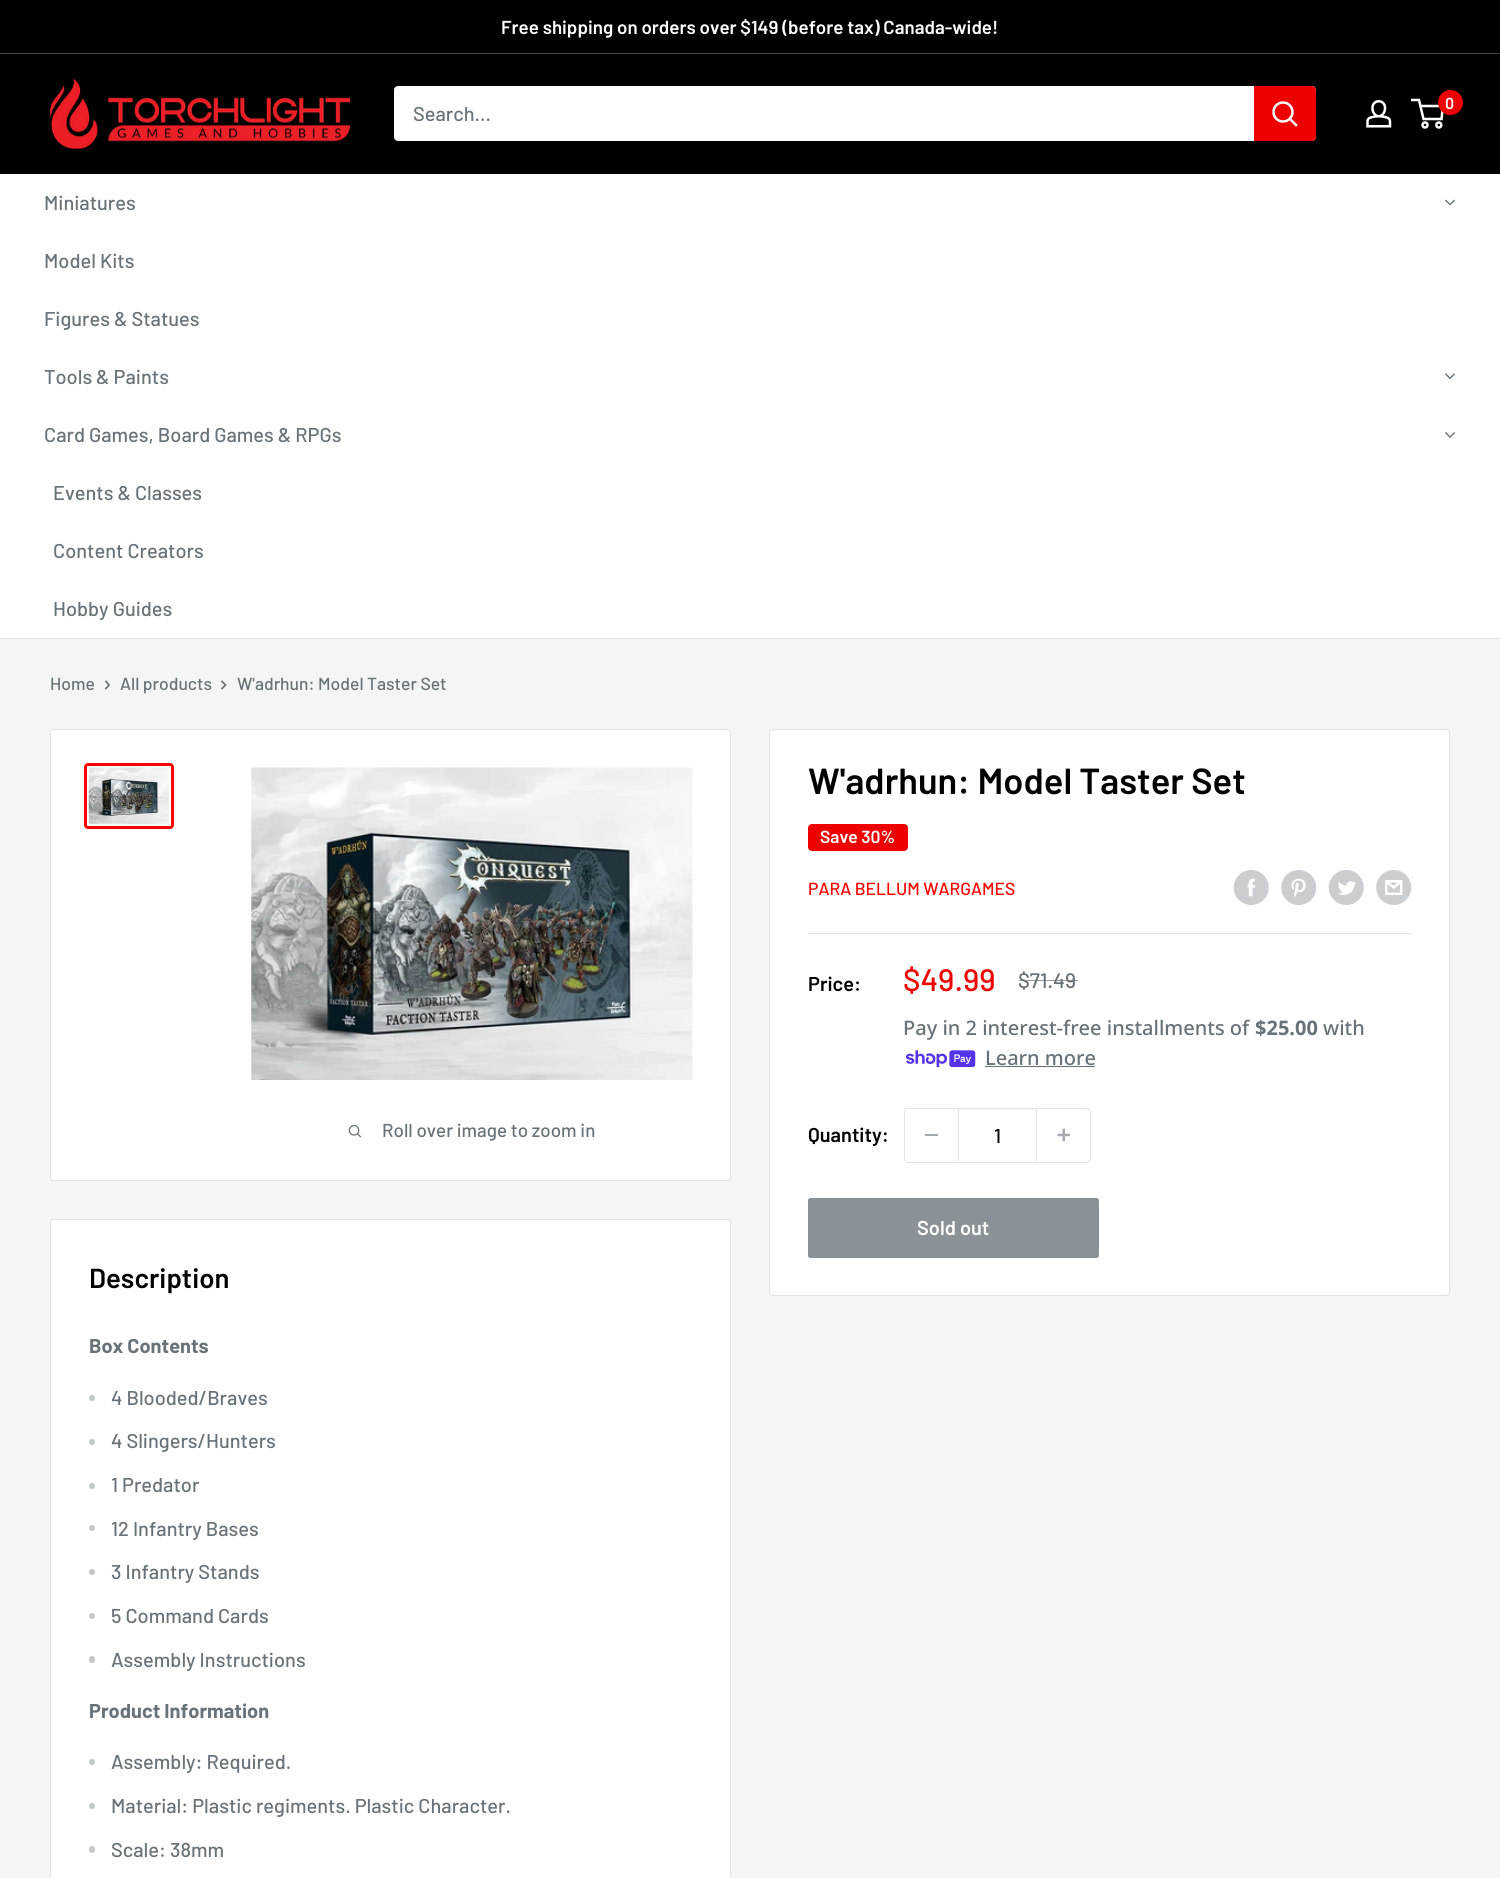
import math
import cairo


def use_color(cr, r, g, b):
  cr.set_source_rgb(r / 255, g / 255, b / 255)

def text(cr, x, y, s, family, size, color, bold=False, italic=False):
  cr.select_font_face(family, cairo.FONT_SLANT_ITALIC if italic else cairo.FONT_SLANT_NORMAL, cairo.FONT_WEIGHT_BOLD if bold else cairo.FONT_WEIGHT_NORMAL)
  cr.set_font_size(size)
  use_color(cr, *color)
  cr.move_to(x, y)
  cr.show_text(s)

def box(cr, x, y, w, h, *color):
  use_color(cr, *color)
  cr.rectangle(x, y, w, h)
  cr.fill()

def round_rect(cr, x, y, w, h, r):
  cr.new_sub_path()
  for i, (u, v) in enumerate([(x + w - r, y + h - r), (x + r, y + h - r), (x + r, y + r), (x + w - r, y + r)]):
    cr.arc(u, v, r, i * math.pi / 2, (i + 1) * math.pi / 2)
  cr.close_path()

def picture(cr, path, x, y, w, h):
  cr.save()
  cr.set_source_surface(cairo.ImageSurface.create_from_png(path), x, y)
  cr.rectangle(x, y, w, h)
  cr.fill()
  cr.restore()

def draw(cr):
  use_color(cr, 243, 245, 246)
  cr.paint()
  box(cr, 0, 0, 1500, 53, 0, 0, 0)
  box(cr, 0, 53, 1500, 1, 68, 68, 68)
  box(cr, 0, 54, 1500, 120, 0, 0, 0)
  picture(cr, "img_01.png", 50, 78, 300, 71)
  picture(cr, "img_02.png", 1366, 100, 26, 28)
  cr.arc(1425, 125, 2.5, 0, 2 * math.pi)
  use_color(cr, 255, 255, 255)
  cr.set_line_width(2.5)
  cr.stroke()
  cr.arc(1438.8, 125, 2.5, 0, 2 * math.pi)
  cr.stroke()
  cr.new_path()
  cr.move_to(1420.5, 106)
  cr.line_to(1443, 106)
  cr.line_to(1441.5, 119)
  cr.line_to(1423.5, 119)
  cr.line_to(1419, 100)
  cr.line_to(1411, 100)
  cr.stroke()
  use_color(cr, 238, 0, 0)
  cr.arc(1450.5, 102.5, 12.5, 0, 2 * math.pi)
  cr.fill()
  use_color(cr, 255, 255, 255)
  round_rect(cr, 394, 86, 922, 55, 4)
  cr.fill()
  use_color(cr, 238, 0, 0)
  cr.new_path()
  cr.move_to(1254, 86)
  cr.line_to(1312, 86)
  cr.curve_to(1314, 86, 1316, 88, 1316, 90)
  cr.line_to(1316, 137)
  cr.curve_to(1316, 139, 1314, 141, 1312, 141)
  cr.line_to(1254, 141)
  cr.close_path()
  cr.fill()
  cr.new_path()
  cr.move_to(1296, 125)
  cr.line_to(1290, 119)
  use_color(cr, 255, 255, 255)
  cr.set_line_cap(cairo.LINE_CAP_SQUARE)
  cr.stroke()
  cr.arc(1283, 112, 9.5, 0, 2 * math.pi)
  cr.set_line_cap(cairo.LINE_CAP_BUTT)
  cr.stroke()
  box(cr, 0, 174, 1500, 464, 255, 255, 255)
  box(cr, 0, 638, 1500, 1, 225, 227, 228)
  picture(cr, "img_03.png", 1445, 199, 10, 7)
  picture(cr, "img_04.png", 1445, 373, 10, 6)
  picture(cr, "img_05.png", 1445, 432, 10, 6)
  cr.new_path()
  cr.move_to(106, 681.5)
  cr.line_to(109, 685)
  cr.line_to(106, 688.5)
  use_color(cr, 103, 114, 121)
  cr.set_line_width(1.7)
  cr.set_line_cap(cairo.LINE_CAP_SQUARE)
  cr.stroke()
  cr.new_path()
  cr.move_to(222, 681.5)
  cr.line_to(225.5, 685)
  cr.line_to(222, 688.5)
  cr.stroke()
  use_color(cr, 255, 255, 255)
  round_rect(cr, 50.5, 729.5, 680, 451, 3.5)
  cr.fill_preserve()
  use_color(cr, 225, 227, 228)
  cr.set_line_width(1)
  cr.set_line_cap(cairo.LINE_CAP_BUTT)
  cr.stroke()
  round_rect(cr, 85.5, 764.5, 87, 63, 2.5)
  use_color(cr, 255, 0, 0)
  cr.set_line_width(3)
  cr.stroke()
  picture(cr, "img_06.png", 88, 767, 81, 57)
  picture(cr, "img_07.png", 251, 767, 442, 313)
  picture(cr, "img_08.png", 348, 1125, 14, 13)
  use_color(cr, 255, 255, 255)
  round_rect(cr, 769.5, 729.5, 680, 566, 3.5)
  cr.fill_preserve()
  use_color(cr, 225, 227, 228)
  cr.set_line_width(1)
  cr.stroke()
  use_color(cr, 238, 0, 0)
  round_rect(cr, 808, 824, 100, 27, 4)
  cr.fill()
  picture(cr, "img_09.png", 1233, 870, 36, 35)
  picture(cr, "img_10.png", 1281, 870, 36, 35)
  picture(cr, "img_11.png", 1328, 870, 36, 35)
  picture(cr, "img_12.png", 1376, 870, 36, 35)
  box(cr, 808, 933, 603, 1, 225, 227, 228)
  picture(cr, "img_13.png", 906, 1050, 70, 18)
  box(cr, 985, 1066, 110, 1, 103, 114, 121)
  round_rect(cr, 904.5, 1108.5, 186, 54, 3.5)
  use_color(cr, 225, 227, 228)
  cr.stroke()
  box(cr, 925, 1134, 13, 2, 164, 170, 175)
  box(cr, 959, 1109, 77, 1, 243, 244, 244)
  box(cr, 1036, 1109, 1, 52, 225, 227, 228)
  box(cr, 958, 1109, 1, 52, 225, 227, 228)
  picture(cr, "img_14.png", 1057, 1128, 13, 14)
  use_color(cr, 138, 146, 151)
  round_rect(cr, 808.5, 1198.5, 290, 59, 2)
  cr.fill_preserve()
  cr.stroke()
  use_color(cr, 255, 255, 255)
  round_rect(cr, 50.5, 1219.5, 680, 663, 3.5)
  cr.fill_preserve()
  use_color(cr, 225, 227, 228)
  cr.stroke()
  use_color(cr, 194, 199, 201)
  cr.arc(92, 1398, 3, 0, 2 * math.pi)
  cr.fill()
  cr.arc(92, 1442, 3, 0, 2 * math.pi)
  cr.fill()
  cr.arc(92, 1486, 3, 0, 2 * math.pi)
  cr.fill()
  cr.arc(92, 1528, 3, 0, 2 * math.pi)
  cr.fill()
  cr.arc(92, 1572, 3, 0, 2 * math.pi)
  cr.fill()
  cr.arc(92, 1616, 3, 0, 2 * math.pi)
  cr.fill()
  round_rect(cr, 89, 1656, 6, 7, 3)
  cr.fill()
  cr.arc(92, 1762, 3, 0, 2 * math.pi)
  cr.fill()
  cr.arc(92, 1806, 3, 0, 2 * math.pi)
  cr.fill()
  round_rect(cr, 89, 1846, 6, 7, 3)
  cr.fill()
  text(cr, 501, 34, "Free shipping on orders over $149 (before tax) Canada-wide!", "Barlow SemiBold", 18.75, (255, 255, 255))
  text(cr, 1445, 109, "0", "Barlow SemiBold", 16, (255, 255, 255))
  text(cr, 413, 121, "Search...", "Barlow Medium", 20, (103, 114, 121))
  text(cr, 44, 210, "Miniatures", "Barlow Medium", 20, (103, 114, 121))
  text(cr, 44, 268, "Model Kits", "Barlow Medium", 20, (103, 114, 121))
  text(cr, 44, 326, "Figures & Statues", "Barlow Medium", 20, (103, 114, 121))
  text(cr, 44, 384, "Tools & Paints", "Barlow Medium", 20, (103, 114, 121))
  text(cr, 44, 442, "Card Games, Board Games & RPGs", "Barlow Medium", 20, (103, 114, 121))
  text(cr, 53, 500, "Events & Classes", "Barlow Medium", 20, (103, 114, 121))
  text(cr, 53, 558, "Content Creators", "Barlow Medium", 20, (103, 114, 121))
  text(cr, 53, 616, "Hobby Guides", "Barlow Medium", 20, (103, 114, 121))
  text(cr, 50, 690, "Home", "Barlow Medium", 17.5, (103, 114, 121))
  text(cr, 120, 690, "All products", "Barlow Medium", 17.5, (103, 114, 121))
  text(cr, 237, 690, "W'adrhun: Model Taster Set", "Barlow Medium", 17.5, (103, 114, 121))
  text(cr, 382, 1137, "Roll over image to zoom in", "Barlow Medium", 18.75, (103, 114, 121))
  text(cr, 808, 794, "W'adrhun: Model Taster Set", "Barlow SemiBold", 36.25, (0, 0, 0))
  text(cr, 820, 843, "Save 30%", "Barlow SemiBold", 17.5, (255, 255, 255))
  text(cr, 808, 895, "PARA BELLUM WARGAMES", "Barlow Medium", 17.5, (255, 0, 0))
  text(cr, 808, 991, "Price:", "Barlow SemiBold", 20, (0, 0, 0))
  text(cr, 903, 991, "$49.99", "Barlow Medium", 31, (238, 0, 0))
  text(cr, 1018, 988, "$71.49", "Barlow Medium", 21, (103, 114, 121))
  cr.set_source_rgba(0.404, 0.447, 0.475, 0.7)
  cr.rectangle(1019, 980, 59, 1)
  cr.fill()
  text(cr, 903, 1035, "Pay in 2 interest-free installments of", "Noto Sans Medium", 20, (103, 114, 121))
  text(cr, 1255, 1035, "$25.00", "Noto Sans", 20, (103, 114, 121), bold=True)
  text(cr, 1323, 1035, "with", "Noto Sans Medium", 20, (103, 114, 121))
  text(cr, 985, 1065, "Learn more", "Noto Sans Medium", 20, (103, 114, 121))
  text(cr, 808, 1142, "Quantity:", "Barlow SemiBold", 20, (0, 0, 0))
  text(cr, 994, 1143, "1", "Barlow Medium", 20, (0, 0, 0))
  text(cr, 917, 1235, "Sold out", "Barlow SemiBold", 20, (255, 255, 255))
  text(cr, 89, 1288, "Description", "Barlow SemiBold", 27.5, (0, 0, 0))
  text(cr, 89, 1353, "Box Contents", "Barlow", 20, (103, 114, 121), bold=True)
  text(cr, 111, 1405, "4 Blooded/Braves", "Barlow Medium", 20, (103, 114, 121))
  text(cr, 111, 1448, "4 Slingers/Hunters", "Barlow Medium", 20, (103, 114, 121))
  text(cr, 111, 1492, "1 Predator", "Barlow Medium", 20, (103, 114, 121))
  text(cr, 111, 1536, "12 Infantry Bases", "Barlow Medium", 20, (103, 114, 121))
  text(cr, 111, 1579, "3 Infantry Stands", "Barlow Medium", 20, (103, 114, 121))
  text(cr, 111, 1623, "5 Command Cards", "Barlow Medium", 20, (103, 114, 121))
  text(cr, 111, 1667, "Assembly Instructions", "Barlow Medium", 20, (103, 114, 121))
  text(cr, 89, 1718, "Product Information", "Barlow", 20, (103, 114, 121), bold=True)
  text(cr, 111, 1769, "Assembly: Required.", "Barlow Medium", 20, (103, 114, 121))
  text(cr, 111, 1813, "Material: Plastic regiments. Plastic Character.", "Barlow Medium", 20, (103, 114, 121))
  text(cr, 111, 1857, "Scale: 38mm", "Barlow Medium", 20, (103, 114, 121))


surface = cairo.ImageSurface(cairo.FORMAT_RGB24, 1500, 1878)
cr = cairo.Context(surface)
options = cairo.FontOptions()
options.set_hint_metrics(cairo.HINT_METRICS_OFF)
options.set_hint_style(cairo.HINT_STYLE_NONE)
cr.set_font_options(options)
cr.set_miter_limit(4)
draw(cr)
surface.write_to_png("out.png")
